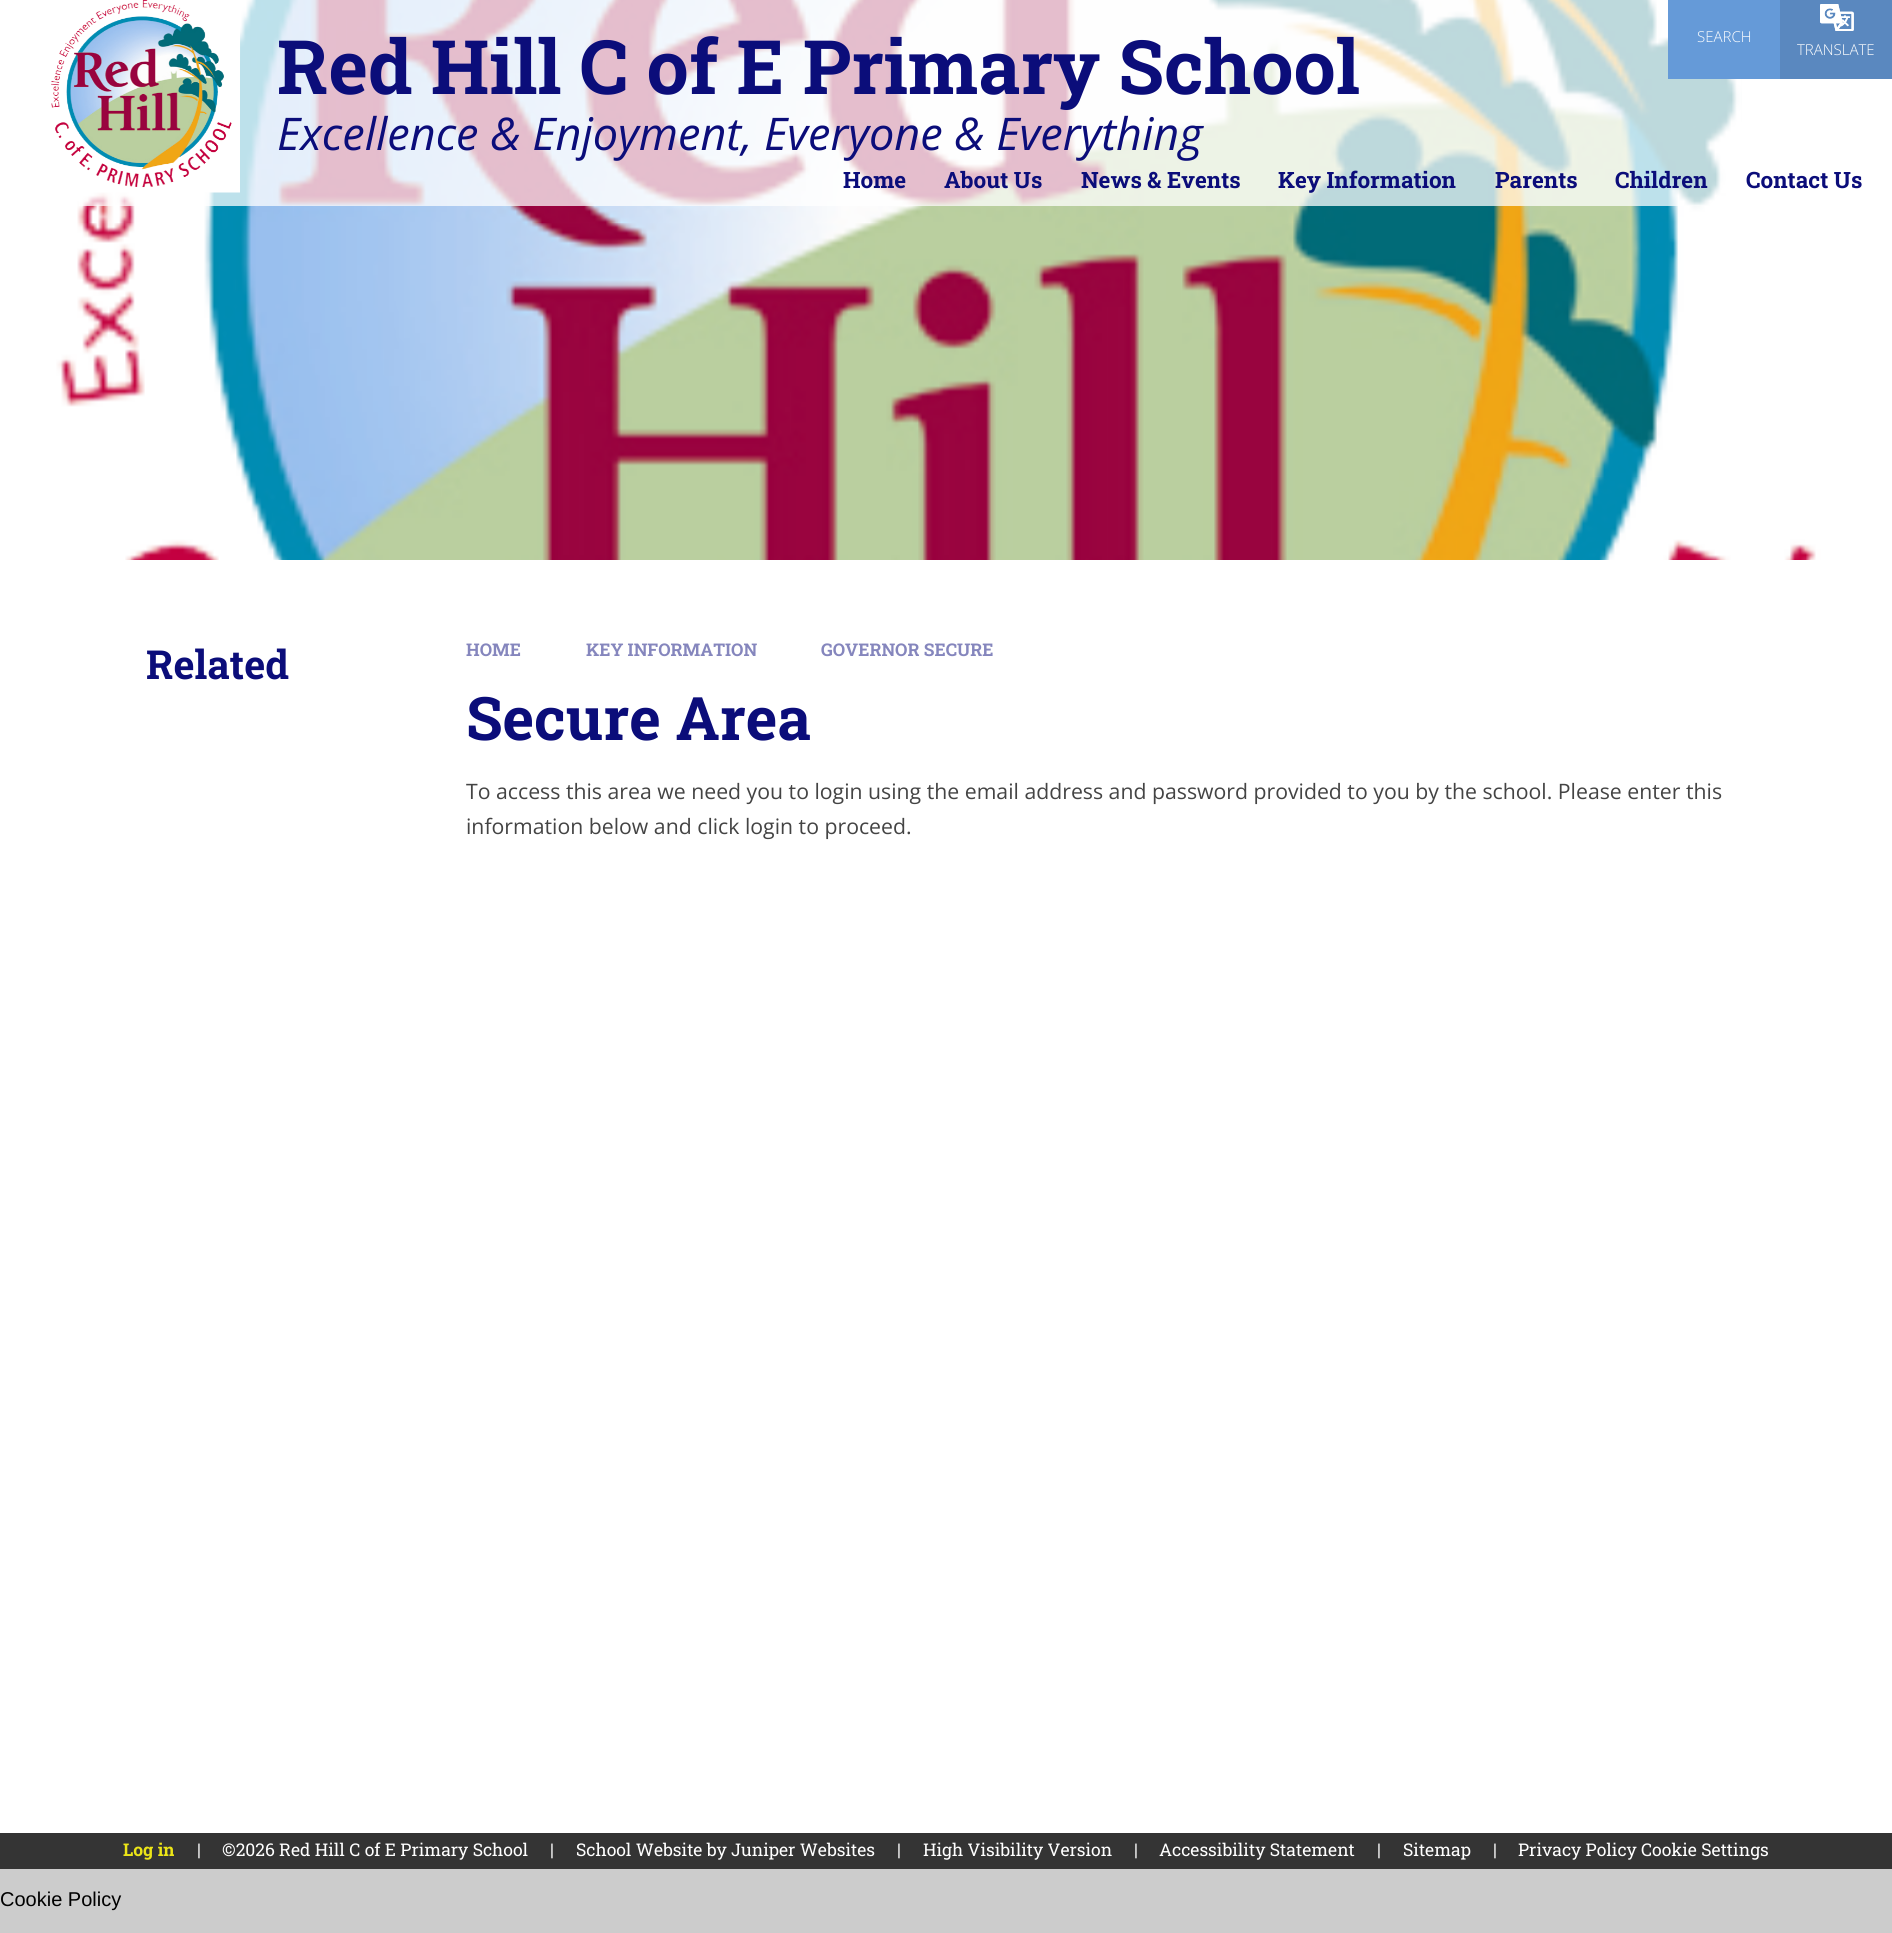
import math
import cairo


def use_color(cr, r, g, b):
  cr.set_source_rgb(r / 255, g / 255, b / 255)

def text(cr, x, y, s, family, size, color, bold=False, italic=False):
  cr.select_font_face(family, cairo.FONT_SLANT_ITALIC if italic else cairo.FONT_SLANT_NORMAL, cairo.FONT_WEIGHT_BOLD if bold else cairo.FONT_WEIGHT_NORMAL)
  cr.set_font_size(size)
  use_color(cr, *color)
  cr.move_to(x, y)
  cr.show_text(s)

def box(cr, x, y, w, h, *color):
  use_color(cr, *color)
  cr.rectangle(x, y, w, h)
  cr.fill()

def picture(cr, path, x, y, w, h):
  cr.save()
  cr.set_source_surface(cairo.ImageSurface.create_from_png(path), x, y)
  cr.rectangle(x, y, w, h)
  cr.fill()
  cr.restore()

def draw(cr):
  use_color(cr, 204, 204, 204)
  cr.paint()
  picture(cr, "img_01.png", 0, 0, 1892, 560)
  cr.set_source_rgba(1, 1, 1, 0.74)
  cr.rectangle(56, 0, 1685, 193)
  cr.fill()
  picture(cr, "img_02.png", 51, 0, 189, 193)
  box(cr, 1668, 0, 112, 79, 101, 154, 216)
  box(cr, 1780, 0, 112, 79, 90, 136, 191)
  picture(cr, "img_03.png", 1820, 4, 34, 27)
  cr.set_source_rgba(1, 1, 1, 0.74)
  cr.rectangle(79, 193, 1642, 13)
  cr.fill()
  box(cr, 0, 560, 1892, 1273, 255, 255, 255)
  box(cr, 0, 1833, 1892, 36, 52, 52, 52)
  text(cr, 277, 94, "Red Hill C of E Primary School", "Roboto Slab", 75, (11, 13, 122), bold=True)
  text(cr, 277, 150, "Excellence & Enjoyment, Everyone & Everything", "Open Sans", 45, (11, 13, 122), italic=True)
  text(cr, 1697, 42, "SEARCH", "Open Sans Light", 15, (255, 255, 255))
  text(cr, 1797, 55, "TRANSLATE", "Open Sans Light", 15, (255, 255, 255))
  text(cr, 843, 188, "Home", "Roboto Slab", 22.5, (11, 13, 122), bold=True)
  text(cr, 944, 188, "About Us", "Roboto Slab", 22.5, (11, 13, 122), bold=True)
  text(cr, 1081, 188, "News & Events", "Roboto Slab", 22.5, (11, 13, 122), bold=True)
  text(cr, 1278, 188, "Key Information", "Roboto Slab", 22.5, (11, 13, 122), bold=True)
  text(cr, 1495, 188, "Parents", "Roboto Slab", 22.5, (11, 13, 122), bold=True)
  text(cr, 1615, 188, "Children", "Roboto Slab", 22.5, (11, 13, 122), bold=True)
  text(cr, 1746, 188, "Contact Us", "Roboto Slab", 22.5, (11, 13, 122), bold=True)
  text(cr, 146, 679, "Related", "Roboto Slab", 40, (11, 13, 122), bold=True)
  text(cr, 466, 656, "HOME", "Roboto Slab", 17.5, (133, 134, 189), bold=True)
  text(cr, 586, 656, "KEY INFORMATION", "Roboto Slab", 17.5, (133, 134, 189), bold=True)
  text(cr, 821, 656, "GOVERNOR SECURE", "Roboto Slab", 17.5, (133, 134, 189), bold=True)
  text(cr, 466, 740, "Secure Area", "Roboto Slab", 60, (11, 13, 122), bold=True)
  text(cr, 466, 799, "To access this area we need you to login using the email address and password provided to you by the school. Please enter this", "Open Sans", 21.25, (68, 68, 68))
  text(cr, 466, 834, "information below and click login to proceed.", "Open Sans", 21.25, (68, 68, 68))
  text(cr, 123, 1856, "Log in", "Roboto Slab", 17.5, (236, 229, 23), bold=True)
  text(cr, 197, 1856, "|", "Roboto Slab", 17.5, (255, 255, 255))
  text(cr, 222, 1856, "©2026 Red Hill C of E Primary School", "Roboto Slab", 17.5, (255, 255, 255))
  text(cr, 550, 1856, "|", "Roboto Slab", 17.5, (255, 255, 255))
  text(cr, 576, 1856, "School Website by Juniper Websites", "Roboto Slab", 17.5, (255, 255, 255))
  text(cr, 897, 1856, "|", "Roboto Slab", 17.5, (255, 255, 255))
  text(cr, 923, 1856, "High Visibility Version", "Roboto Slab", 17.5, (255, 255, 255))
  text(cr, 1134, 1856, "|", "Roboto Slab", 17.5, (255, 255, 255))
  text(cr, 1159, 1856, "Accessibility Statement", "Roboto Slab", 17.5, (255, 255, 255))
  text(cr, 1377, 1856, "|", "Roboto Slab", 17.5, (255, 255, 255))
  text(cr, 1403, 1856, "Sitemap", "Roboto Slab", 17.5, (255, 255, 255))
  text(cr, 1493, 1856, "|", "Roboto Slab", 17.5, (255, 255, 255))
  text(cr, 1518, 1856, "Privacy Policy Cookie Settings", "Roboto Slab", 17.5, (255, 255, 255))
  text(cr, 0, 1906, "Cookie Policy", "Liberation Sans", 20, (0, 0, 0))


surface = cairo.ImageSurface(cairo.FORMAT_RGB24, 1892, 1933)
cr = cairo.Context(surface)
options = cairo.FontOptions()
options.set_hint_metrics(cairo.HINT_METRICS_OFF)
options.set_hint_style(cairo.HINT_STYLE_NONE)
cr.set_font_options(options)
cr.set_miter_limit(4)
draw(cr)
surface.write_to_png("out.png")
